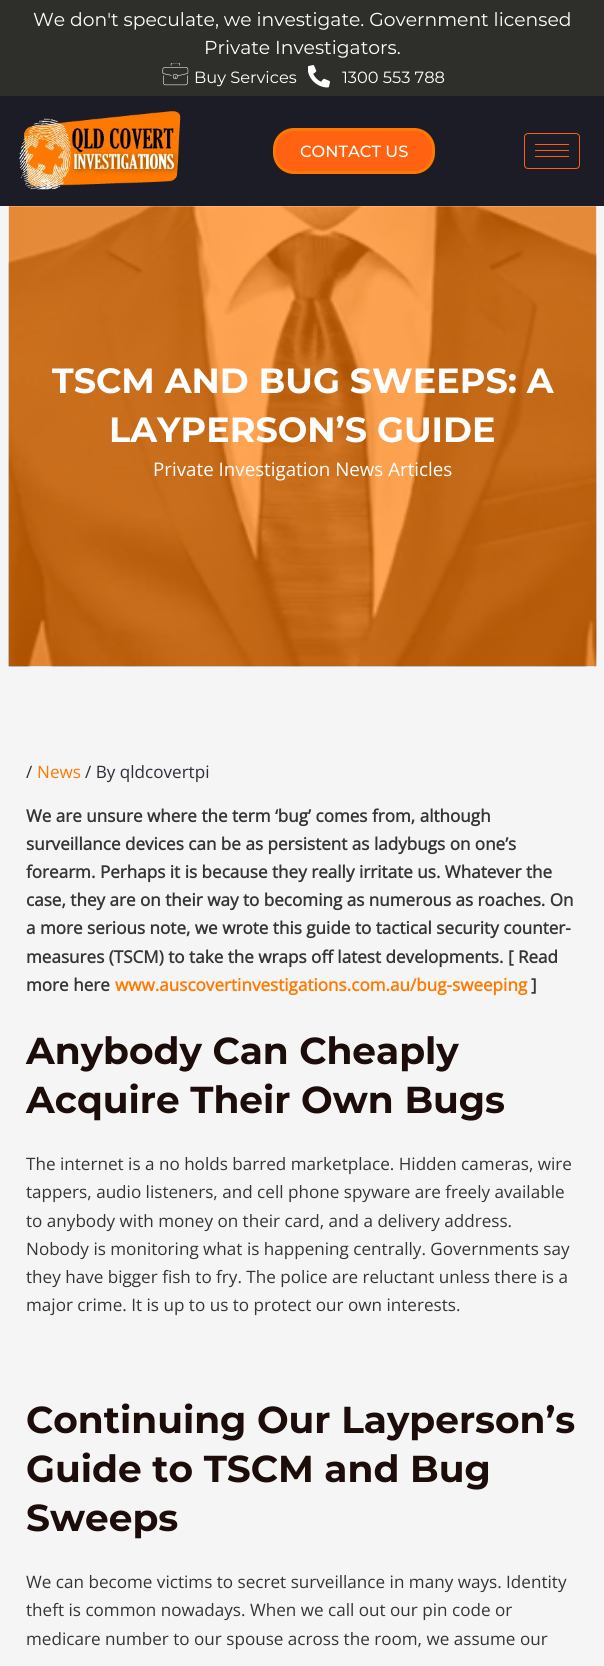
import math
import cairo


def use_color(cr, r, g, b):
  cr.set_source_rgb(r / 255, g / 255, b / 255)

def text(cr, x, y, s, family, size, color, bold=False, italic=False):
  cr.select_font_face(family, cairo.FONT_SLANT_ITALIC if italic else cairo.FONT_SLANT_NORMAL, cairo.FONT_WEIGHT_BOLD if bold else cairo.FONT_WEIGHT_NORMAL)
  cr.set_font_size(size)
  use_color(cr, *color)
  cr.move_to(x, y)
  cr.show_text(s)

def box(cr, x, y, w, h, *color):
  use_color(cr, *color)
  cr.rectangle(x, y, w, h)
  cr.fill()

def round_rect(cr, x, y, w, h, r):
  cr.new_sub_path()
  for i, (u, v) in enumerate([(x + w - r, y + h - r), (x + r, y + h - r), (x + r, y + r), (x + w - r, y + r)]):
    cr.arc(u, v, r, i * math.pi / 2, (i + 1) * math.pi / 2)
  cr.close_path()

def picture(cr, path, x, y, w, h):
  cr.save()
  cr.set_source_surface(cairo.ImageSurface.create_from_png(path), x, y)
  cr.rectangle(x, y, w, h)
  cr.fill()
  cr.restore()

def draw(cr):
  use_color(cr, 245, 245, 245)
  cr.paint()
  box(cr, 0, 0, 604, 96, 46, 46, 42)
  picture(cr, "img_01.png", 162, 63, 27, 23)
  picture(cr, "img_02.png", 308, 65, 22, 23)
  box(cr, 0, 96, 604, 110, 28, 28, 38)
  picture(cr, "img_03.png", 19, 111, 162, 79)
  use_color(cr, 255, 98, 16)
  round_rect(cr, 274.5, 129.5, 159, 43, 19.5)
  cr.fill_preserve()
  use_color(cr, 255, 121, 0)
  cr.set_line_width(3)
  cr.stroke()
  round_rect(cr, 524.5, 133.5, 55, 35, 3.5)
  use_color(cr, 255, 94, 19)
  cr.set_line_width(1)
  cr.stroke()
  box(cr, 535, 144, 34, 1, 255, 94, 19)
  box(cr, 535, 150, 34, 1, 255, 94, 19)
  box(cr, 535, 156, 34, 1, 255, 94, 19)
  picture(cr, "img_04.png", 8, 206, 589, 461)
  text(cr, 33, 26, "We don't speculate, we investigate. Government licensed", "Montserrat", 18.75, (255, 255, 255))
  text(cr, 204, 54, "Private Investigators.", "Montserrat", 18.75, (255, 255, 255))
  text(cr, 194, 83, "Buy Services", "Montserrat", 16.25, (255, 255, 255))
  text(cr, 342, 83, "1300 553 788", "Montserrat", 16.25, (255, 255, 255))
  text(cr, 300, 157, "CONTACT US", "Montserrat Medium", 16.25, (255, 255, 255))
  text(cr, 52, 393, "TSCM AND BUG SWEEPS: A", "Montserrat", 35, (255, 255, 255), bold=True)
  text(cr, 109, 442, "LAYPERSON’S GUIDE", "Montserrat", 35, (255, 255, 255), bold=True)
  text(cr, 153, 476, "Private Investigation News Articles", "Open Sans", 18.75, (255, 255, 255))
  text(cr, 26, 778, "/", "Open Sans", 17.1, (46, 46, 58))
  text(cr, 37, 778, "News", "Open Sans", 17.1, (255, 121, 0))
  text(cr, 85, 778, "/ By qldcovertpi", "Open Sans", 17.1, (46, 46, 58))
  text(cr, 26, 822, "We are unsure where the term ‘bug’ comes from, although", "Open Sans", 17.1, (53, 53, 53), bold=True)
  text(cr, 26, 850, "surveillance devices can be as persistent as ladybugs on one’s", "Open Sans", 17.1, (53, 53, 53), bold=True)
  text(cr, 26, 878, "forearm. Perhaps it is because they really irritate us. Whatever the", "Open Sans", 17.1, (53, 53, 53), bold=True)
  text(cr, 26, 906, "case, they are on their way to becoming as numerous as roaches. On", "Open Sans", 17.1, (53, 53, 53), bold=True)
  text(cr, 26, 934, "a more serious note, we wrote this guide to tactical security counter-", "Open Sans", 17.1, (53, 53, 53), bold=True)
  text(cr, 26, 963, "measures (TSCM) to take the wraps off latest developments. [ Read", "Open Sans", 17.1, (53, 53, 53), bold=True)
  text(cr, 26, 991, "more here", "Open Sans", 17.1, (53, 53, 53), bold=True)
  text(cr, 115, 991, "www.auscovertinvestigations.com.au/bug-sweeping", "Open Sans", 17.1, (255, 121, 0), bold=True)
  text(cr, 531, 991, "]", "Open Sans", 17.1, (53, 53, 53), bold=True)
  text(cr, 26, 1064, "Anybody Can Cheaply", "Montserrat", 37.5, (28, 13, 10), bold=True)
  text(cr, 26, 1113, "Acquire Their Own Bugs", "Montserrat", 37.5, (28, 13, 10), bold=True)
  text(cr, 26, 1170, "The internet is a no holds barred marketplace. Hidden cameras, wire", "Open Sans", 17.1, (53, 53, 53))
  text(cr, 26, 1198, "tappers, audio listeners, and cell phone spyware are freely available", "Open Sans", 17.1, (53, 53, 53))
  text(cr, 26, 1227, "to anybody with money on their card, and a delivery address.", "Open Sans", 17.1, (53, 53, 53))
  text(cr, 26, 1255, "Nobody is monitoring what is happening centrally. Governments say", "Open Sans", 17.1, (53, 53, 53))
  text(cr, 26, 1283, "they have bigger fish to fry. The police are reluctant unless there is a", "Open Sans", 17.1, (53, 53, 53))
  text(cr, 26, 1311, "major crime. It is up to us to protect our own interests.", "Open Sans", 17.1, (53, 53, 53))
  text(cr, 26, 1433, "Continuing Our Layperson’s", "Montserrat", 37.5, (28, 13, 10), bold=True)
  text(cr, 26, 1482, "Guide to TSCM and Bug", "Montserrat", 37.5, (28, 13, 10), bold=True)
  text(cr, 26, 1531, "Sweeps", "Montserrat", 37.5, (28, 13, 10), bold=True)
  text(cr, 26, 1588, "We can become victims to secret surveillance in many ways. Identity", "Open Sans", 17.1, (53, 53, 53))
  text(cr, 26, 1616, "theft is common nowadays. When we call out our pin code or", "Open Sans", 17.1, (53, 53, 53))
  text(cr, 26, 1645, "medicare number to our spouse across the room, we assume our", "Open Sans", 17.1, (53, 53, 53))


surface = cairo.ImageSurface(cairo.FORMAT_RGB24, 604, 1666)
cr = cairo.Context(surface)
options = cairo.FontOptions()
options.set_hint_metrics(cairo.HINT_METRICS_OFF)
options.set_hint_style(cairo.HINT_STYLE_NONE)
cr.set_font_options(options)
cr.set_miter_limit(4)
draw(cr)
surface.write_to_png("out.png")
